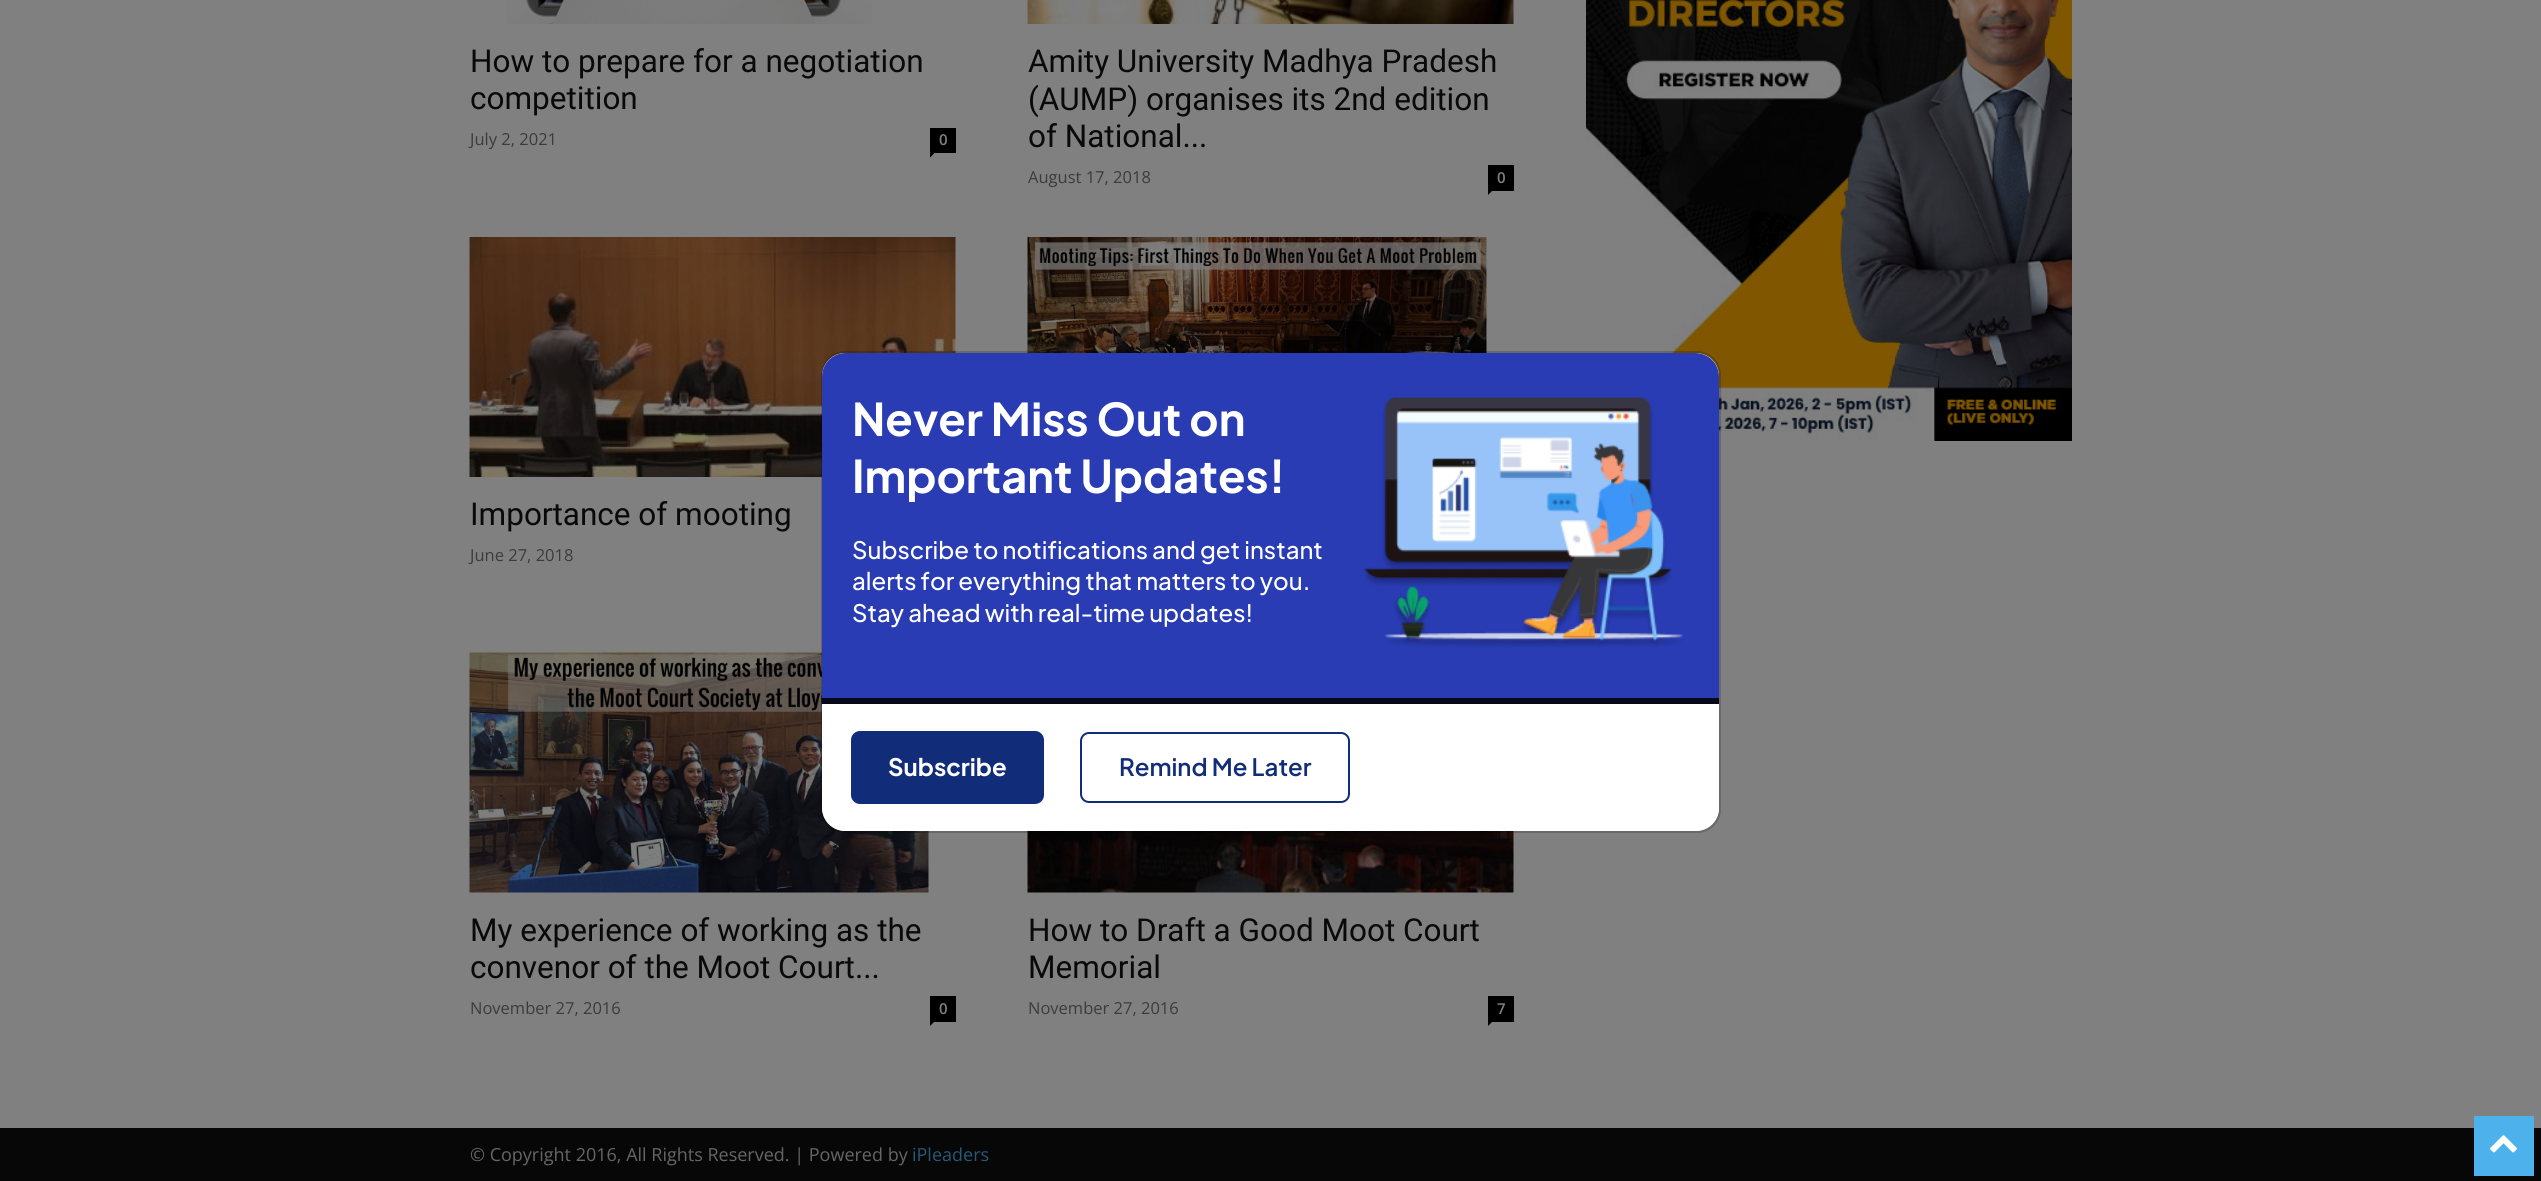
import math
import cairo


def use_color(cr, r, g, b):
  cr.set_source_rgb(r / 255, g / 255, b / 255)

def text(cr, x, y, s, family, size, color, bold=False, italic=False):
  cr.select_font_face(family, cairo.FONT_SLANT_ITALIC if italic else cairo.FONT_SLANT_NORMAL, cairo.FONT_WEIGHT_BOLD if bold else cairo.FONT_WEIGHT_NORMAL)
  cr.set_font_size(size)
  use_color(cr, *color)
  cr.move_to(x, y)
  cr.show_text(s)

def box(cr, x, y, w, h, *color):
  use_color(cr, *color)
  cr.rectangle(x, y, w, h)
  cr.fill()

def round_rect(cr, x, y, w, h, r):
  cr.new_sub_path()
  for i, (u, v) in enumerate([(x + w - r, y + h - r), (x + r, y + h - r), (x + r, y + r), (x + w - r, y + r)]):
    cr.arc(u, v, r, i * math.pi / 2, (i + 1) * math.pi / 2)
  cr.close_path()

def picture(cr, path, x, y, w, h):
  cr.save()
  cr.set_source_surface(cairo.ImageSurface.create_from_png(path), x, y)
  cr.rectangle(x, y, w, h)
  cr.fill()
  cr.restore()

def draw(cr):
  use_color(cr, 128, 128, 128)
  cr.paint()
  picture(cr, "img_01.png", 506, 0, 366, 24)
  box(cr, 930, 128, 26, 25, 0, 0, 0)
  cr.new_path()
  cr.move_to(930, 153)
  cr.line_to(934.5, 153)
  cr.line_to(930, 157.5)
  cr.close_path()
  cr.fill()
  picture(cr, "img_02.png", 1027, 0, 487, 24)
  box(cr, 1488, 165, 26, 26, 0, 0, 0)
  cr.new_path()
  cr.move_to(1488, 190.5)
  cr.line_to(1492.5, 190.5)
  cr.line_to(1488, 195)
  cr.close_path()
  cr.fill()
  picture(cr, "img_03.png", 1027, 237, 460, 116)
  picture(cr, "img_04.png", 469, 237, 487, 240)
  picture(cr, "img_05.png", 469, 652, 460, 241)
  box(cr, 930, 996, 26, 26, 0, 0, 0)
  cr.new_path()
  cr.move_to(930, 1021.5)
  cr.line_to(934.5, 1021.5)
  cr.line_to(930, 1026)
  cr.close_path()
  cr.fill()
  picture(cr, "img_06.png", 1027, 831, 487, 62)
  box(cr, 1488, 996, 26, 26, 0, 0, 0)
  cr.new_path()
  cr.move_to(1488, 1021.5)
  cr.line_to(1492.5, 1021.5)
  cr.line_to(1488, 1026)
  cr.close_path()
  cr.fill()
  picture(cr, "img_07.png", 1586, 0, 486, 441)
  box(cr, 0, 1128, 2541, 53, 7, 7, 7)
  use_color(cr, 255, 255, 255)
  round_rect(cr, 822, 353, 897, 478, 23)
  cr.fill()
  round_rect(cr, 822, 352, 898, 480, 23)
  cr.set_source_rgba(0, 0, 0, 0.18)
  cr.stroke()
  use_color(cr, 41, 60, 179)
  cr.new_path()
  cr.move_to(846, 353)
  cr.line_to(1695, 353)
  cr.curve_to(1708.5, 353, 1719, 363.5, 1719, 377)
  cr.line_to(1719, 698)
  cr.line_to(822, 698)
  cr.line_to(822, 377)
  cr.curve_to(822, 363.5, 832.5, 353, 846, 353)
  cr.close_path()
  cr.fill()
  picture(cr, "img_08.png", 1364, 397, 319, 251)
  use_color(cr, 255, 255, 255)
  cr.new_path()
  cr.move_to(822, 698)
  cr.line_to(1719, 698)
  cr.line_to(1719, 807)
  cr.curve_to(1719, 820.5, 1708.5, 831, 1695, 831)
  cr.line_to(846, 831)
  cr.curve_to(832.5, 831, 822, 820.5, 822, 807)
  cr.close_path()
  cr.fill()
  box(cr, 822, 698, 897, 6, 7, 9, 27)
  use_color(cr, 17, 44, 121)
  round_rect(cr, 851, 731, 193, 73, 9)
  cr.fill()
  round_rect(cr, 1081, 733, 268, 69, 8)
  cr.stroke()
  box(cr, 2474, 1116, 60, 60, 77, 178, 236)
  picture(cr, "img_09.png", 2490, 1135, 27, 18)
  text(cr, 470, 72, "How to prepare for a negotiation", "Roboto", 31.5, (9, 9, 9))
  text(cr, 470, 109, "competition", "Roboto", 31.5, (9, 9, 9))
  text(cr, 470, 145, "July 2, 2021", "Open Sans", 16.5, (59, 59, 59))
  text(cr, 939, 145, "0", "Open Sans SemiBold", 15, (128, 128, 128))
  text(cr, 1028, 72, "Amity University Madhya Pradesh", "Roboto", 31.5, (9, 9, 9))
  text(cr, 1028, 110, "(AUMP) organises its 2nd edition", "Roboto", 31.5, (9, 9, 9))
  text(cr, 1028, 147, "of National...", "Roboto", 31.5, (9, 9, 9))
  text(cr, 1028, 183, "August 17, 2018", "Open Sans", 16.5, (59, 59, 59))
  text(cr, 1497, 183, "0", "Open Sans SemiBold", 15, (128, 128, 128))
  text(cr, 470, 525, "Importance of mooting", "Roboto", 31.5, (9, 9, 9))
  text(cr, 470, 561, "June 27, 2018", "Open Sans", 16.5, (59, 59, 59))
  text(cr, 470, 941, "My experience of working as the", "Roboto", 31.5, (9, 9, 9))
  text(cr, 470, 978, "convenor of the Moot Court...", "Roboto", 31.5, (9, 9, 9))
  text(cr, 470, 1014, "November 27, 2016", "Open Sans", 16.5, (59, 59, 59))
  text(cr, 939, 1014, "0", "Open Sans SemiBold", 15, (128, 128, 128))
  text(cr, 1028, 941, "How to Draft a Good Moot Court", "Roboto", 31.5, (9, 9, 9))
  text(cr, 1028, 978, "Memorial", "Roboto", 31.5, (9, 9, 9))
  text(cr, 1028, 1014, "November 27, 2016", "Open Sans", 16.5, (59, 59, 59))
  text(cr, 1497, 1014, "7", "Open Sans SemiBold", 15, (128, 128, 128))
  text(cr, 470, 1161, "© Copyright 2016, All Rights Reserved. | Powered by", "Open Sans", 18, (102, 102, 102))
  text(cr, 912, 1161, "iPleaders", "Open Sans", 18, (39, 89, 118))
  text(cr, 852, 436, "Never Miss Out on", "Plus Jakarta Sans", 45, (255, 255, 255), bold=True)
  text(cr, 852, 493, "Important Updates!", "Plus Jakarta Sans", 45, (255, 255, 255), bold=True)
  text(cr, 852, 559, "Subscribe to notifications and get instant", "Plus Jakarta Sans Medium", 24, (255, 255, 255))
  text(cr, 852, 590, "alerts for everything that matters to you.", "Plus Jakarta Sans Medium", 24, (255, 255, 255))
  text(cr, 852, 622, "Stay ahead with real-time updates!", "Plus Jakarta Sans Medium", 24, (255, 255, 255))
  text(cr, 888, 776, "Subscribe", "Plus Jakarta Sans", 24, (255, 255, 255), bold=True)
  text(cr, 1119, 776, "Remind Me Later", "Plus Jakarta Sans SemiBold", 24, (17, 44, 121))


surface = cairo.ImageSurface(cairo.FORMAT_RGB24, 2541, 1181)
cr = cairo.Context(surface)
options = cairo.FontOptions()
options.set_hint_metrics(cairo.HINT_METRICS_OFF)
options.set_hint_style(cairo.HINT_STYLE_NONE)
cr.set_font_options(options)
cr.set_miter_limit(4)
draw(cr)
surface.write_to_png("out.png")
